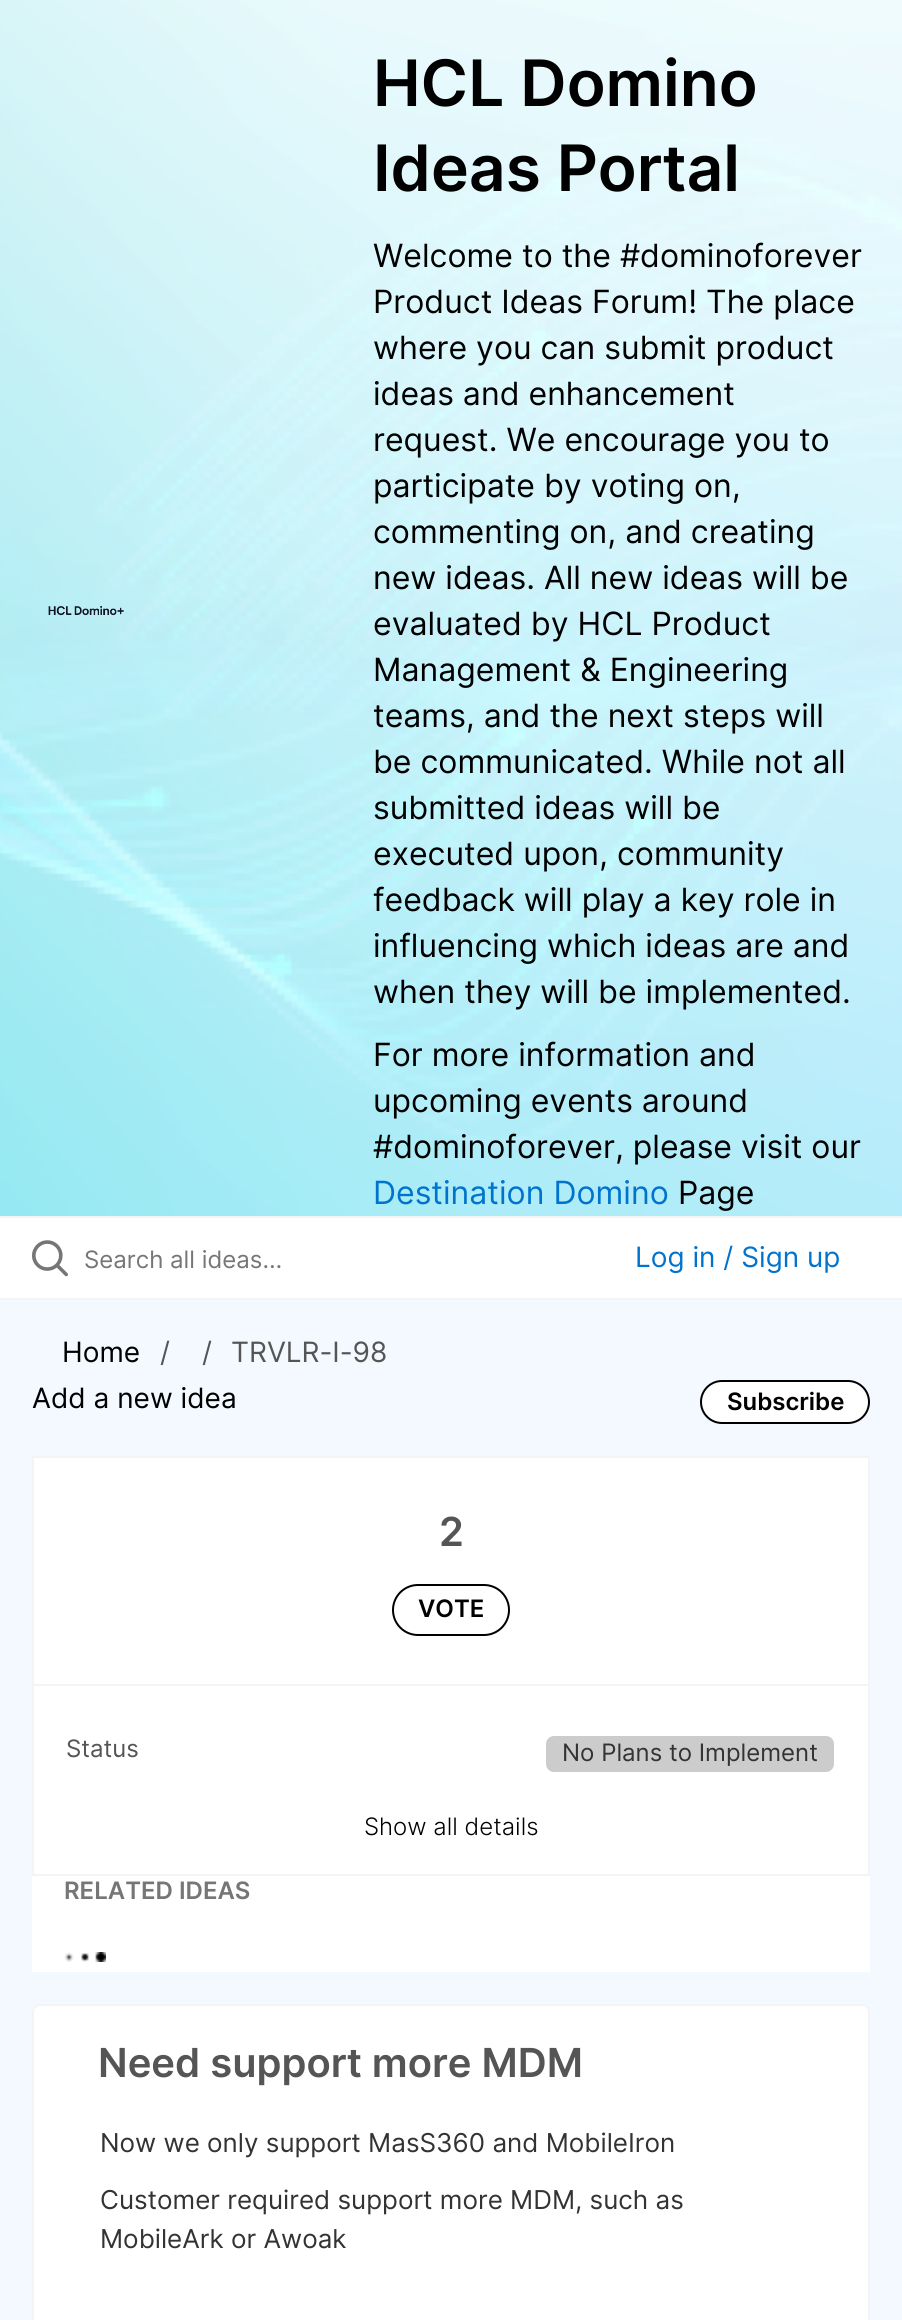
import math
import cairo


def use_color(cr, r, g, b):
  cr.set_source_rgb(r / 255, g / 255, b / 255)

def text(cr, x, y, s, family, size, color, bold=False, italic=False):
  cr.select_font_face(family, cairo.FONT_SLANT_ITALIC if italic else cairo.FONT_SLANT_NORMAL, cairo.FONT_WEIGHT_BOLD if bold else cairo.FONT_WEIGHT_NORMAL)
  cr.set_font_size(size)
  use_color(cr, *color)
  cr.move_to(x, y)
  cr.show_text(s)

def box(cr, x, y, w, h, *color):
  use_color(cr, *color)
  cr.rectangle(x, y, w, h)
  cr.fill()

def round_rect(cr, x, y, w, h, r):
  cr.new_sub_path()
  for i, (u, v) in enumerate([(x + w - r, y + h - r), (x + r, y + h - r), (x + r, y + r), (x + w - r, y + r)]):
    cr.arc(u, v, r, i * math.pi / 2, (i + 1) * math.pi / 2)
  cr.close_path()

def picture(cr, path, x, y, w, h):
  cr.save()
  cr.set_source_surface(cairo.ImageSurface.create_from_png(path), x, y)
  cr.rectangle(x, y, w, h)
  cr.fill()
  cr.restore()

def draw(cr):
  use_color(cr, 243, 249, 254)
  cr.paint()
  picture(cr, "img_01.png", 0, 0, 902, 1216)
  box(cr, 0, 1216, 902, 2, 244, 244, 244)
  picture(cr, "img_02.png", 48, 606, 76, 10)
  box(cr, 0, 1218, 902, 80, 255, 255, 255)
  box(cr, 0, 1298, 902, 2, 244, 244, 244)
  picture(cr, "img_03.png", 32, 1240, 36, 37)
  use_color(cr, 255, 255, 255)
  round_rect(cr, 701, 1381, 168, 42, 21)
  cr.fill_preserve()
  use_color(cr, 0, 0, 0)
  cr.stroke()
  box(cr, 32, 1458, 838, 514, 255, 255, 255)
  cr.rectangle(33, 1457, 836, 418)
  use_color(cr, 244, 244, 244)
  cr.stroke()
  round_rect(cr, 393, 1585, 116, 50, 25)
  use_color(cr, 0, 0, 0)
  cr.stroke()
  box(cr, 34, 1684, 834, 2, 244, 244, 244)
  use_color(cr, 204, 204, 204)
  round_rect(cr, 546, 1736, 288, 36, 8)
  cr.fill()
  picture(cr, "img_04.png", 64, 1952, 42, 10)
  use_color(cr, 255, 255, 255)
  round_rect(cr, 33, 2005, 836, 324, 7)
  cr.fill_preserve()
  use_color(cr, 244, 244, 244)
  cr.stroke()
  text(cr, 373, 106, "HCL Domino", "Inter SemiBold", 64, (0, 0, 0))
  text(cr, 373, 191, "Ideas Portal", "Inter SemiBold", 64, (0, 0, 0))
  text(cr, 373, 267, "Welcome to the #dominoforever", "Inter", 32, (0, 0, 0))
  text(cr, 373, 313, "Product Ideas Forum! The place", "Inter", 32, (0, 0, 0))
  text(cr, 373, 359, "where you can submit product", "Inter", 32, (0, 0, 0))
  text(cr, 373, 405, "ideas and enhancement", "Inter", 32, (0, 0, 0))
  text(cr, 373, 451, "request. We encourage you to", "Inter", 32, (0, 0, 0))
  text(cr, 373, 497, "participate by voting on,", "Inter", 32, (0, 0, 0))
  text(cr, 373, 543, "commenting on, and creating", "Inter", 32, (0, 0, 0))
  text(cr, 373, 589, "new ideas. All new ideas will be", "Inter", 32, (0, 0, 0))
  text(cr, 373, 635, "evaluated by HCL Product", "Inter", 32, (0, 0, 0))
  text(cr, 373, 681, "Management & Engineering", "Inter", 32, (0, 0, 0))
  text(cr, 373, 727, "teams, and the next steps will", "Inter", 32, (0, 0, 0))
  text(cr, 373, 773, "be communicated. While not all", "Inter", 32, (0, 0, 0))
  text(cr, 373, 819, "submitted ideas will be", "Inter", 32, (0, 0, 0))
  text(cr, 373, 865, "executed upon, community", "Inter", 32, (0, 0, 0))
  text(cr, 373, 911, "feedback will play a key role in", "Inter", 32, (0, 0, 0))
  text(cr, 373, 957, "influencing which ideas are and", "Inter", 32, (0, 0, 0))
  text(cr, 373, 1003, "when they will be implemented.", "Inter", 32, (0, 0, 0))
  text(cr, 373, 1066, "For more information and", "Inter", 32, (0, 0, 0))
  text(cr, 373, 1112, "upcoming events around", "Inter", 32, (0, 0, 0))
  text(cr, 373, 1158, "#dominoforever, please visit our", "Inter", 32, (0, 0, 0))
  text(cr, 373, 1204, "Destination Domino", "Inter", 32, (0, 115, 207))
  text(cr, 678, 1204, "Page", "Inter", 32, (0, 0, 0))
  text(cr, 84, 1268, "Search all ideas…", "Inter", 24, (118, 118, 118))
  text(cr, 635, 1267, "Log in / Sign up", "Inter", 28, (0, 115, 207))
  text(cr, 62, 1362, "Home", "Inter", 28, (0, 0, 0))
  text(cr, 160, 1362, "/", "Inter", 28, (85, 85, 85))
  text(cr, 202, 1362, "/", "Inter", 28, (85, 85, 85))
  text(cr, 231, 1362, "TRVLR-I-98", "Inter", 28, (85, 85, 85))
  text(cr, 32, 1408, "Add a new idea", "Inter", 28, (0, 0, 0))
  text(cr, 727, 1410, "Subscribe", "Inter SemiBold", 24, (0, 0, 0))
  text(cr, 439, 1546, "2", "Inter SemiBold", 40, (85, 85, 85))
  text(cr, 418, 1617, "VOTE", "Inter SemiBold", 24, (0, 0, 0))
  text(cr, 66, 1757, "Status", "Inter", 24, (85, 85, 85))
  text(cr, 562, 1761, "No Plans to Implement", "Inter", 24, (51, 51, 51))
  text(cr, 364, 1835, "Show all details", "Inter Light", 24, (0, 0, 0))
  text(cr, 64, 1899, "RELATED IDEAS", "Inter SemiBold", 24, (118, 118, 118))
  text(cr, 98, 2077, "Need support more MDM", "Inter SemiBold", 40, (85, 85, 85))
  text(cr, 100, 2152, "Now we only support MasS360 and MobileIron", "Inter", 26, (51, 51, 51))
  text(cr, 100, 2209, "Customer required support more MDM, such as", "Inter", 26, (51, 51, 51))
  text(cr, 100, 2248, "MobileArk or Awoak", "Inter", 26, (51, 51, 51))


surface = cairo.ImageSurface(cairo.FORMAT_RGB24, 902, 2320)
cr = cairo.Context(surface)
options = cairo.FontOptions()
options.set_hint_metrics(cairo.HINT_METRICS_OFF)
options.set_hint_style(cairo.HINT_STYLE_NONE)
cr.set_font_options(options)
cr.set_miter_limit(4)
draw(cr)
surface.write_to_png("out.png")
